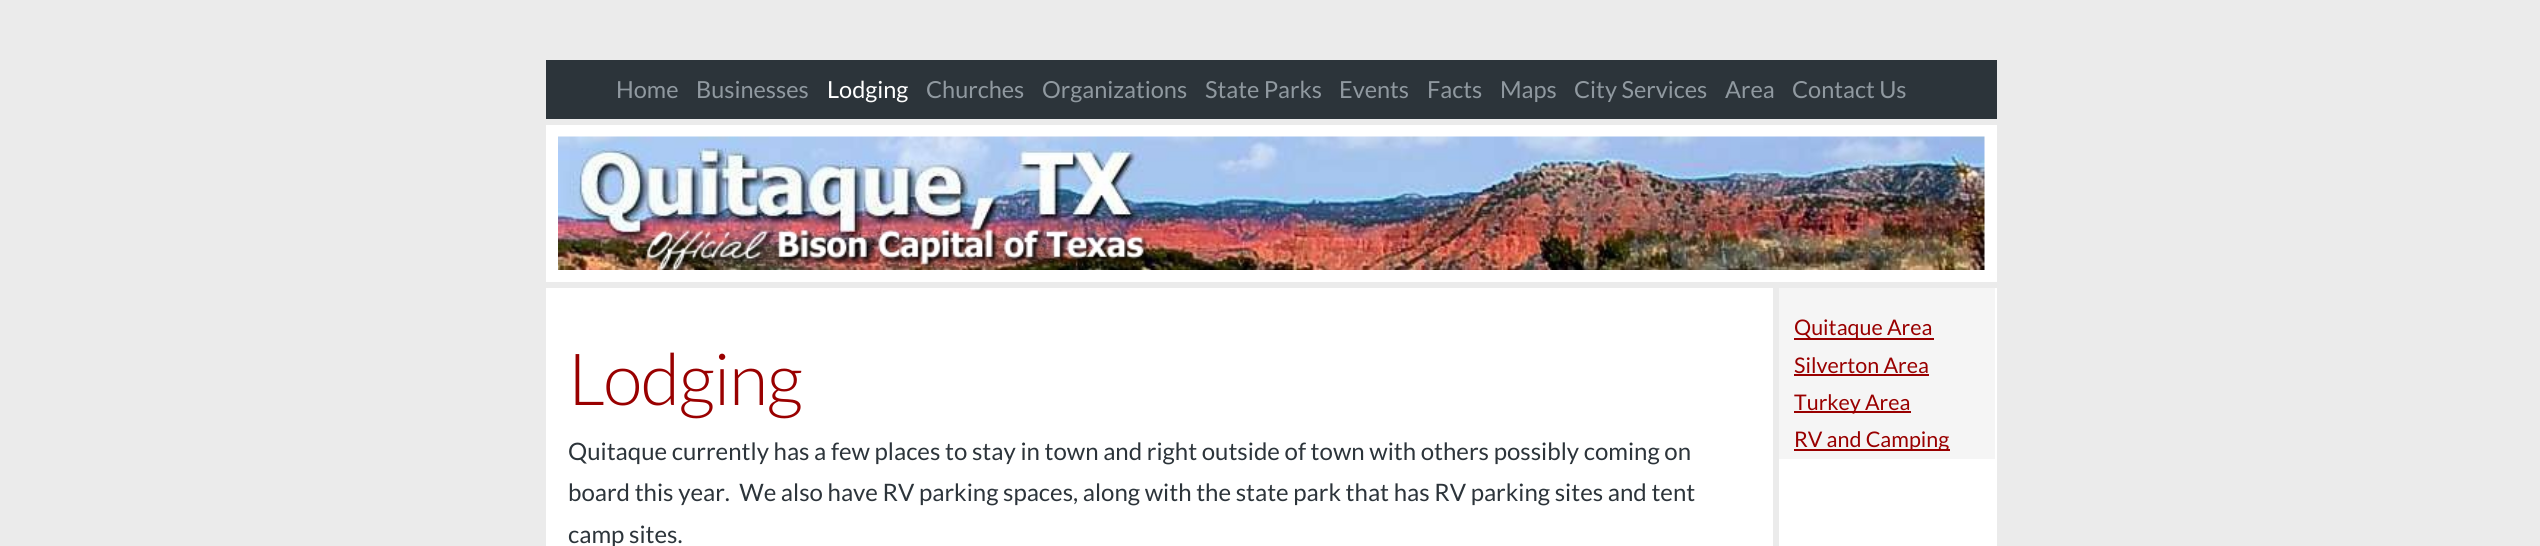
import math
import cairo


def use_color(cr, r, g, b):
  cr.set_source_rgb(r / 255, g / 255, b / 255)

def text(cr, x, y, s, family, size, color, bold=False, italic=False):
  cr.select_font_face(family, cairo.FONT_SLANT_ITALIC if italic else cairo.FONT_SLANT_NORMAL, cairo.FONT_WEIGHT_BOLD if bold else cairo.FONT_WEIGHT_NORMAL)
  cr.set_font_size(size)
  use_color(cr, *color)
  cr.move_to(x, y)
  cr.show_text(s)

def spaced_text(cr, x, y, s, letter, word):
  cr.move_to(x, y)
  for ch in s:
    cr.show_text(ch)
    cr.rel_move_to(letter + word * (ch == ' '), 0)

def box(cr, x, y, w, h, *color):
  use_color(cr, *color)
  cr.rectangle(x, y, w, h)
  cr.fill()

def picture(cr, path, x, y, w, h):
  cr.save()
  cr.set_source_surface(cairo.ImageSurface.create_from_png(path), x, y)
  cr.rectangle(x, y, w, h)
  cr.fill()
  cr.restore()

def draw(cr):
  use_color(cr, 235, 235, 235)
  cr.paint()
  box(cr, 546, 60, 1451, 59, 44, 52, 58)
  box(cr, 546, 125, 1451, 157, 255, 255, 255)
  picture(cr, "img_01.png", 558, 136, 1427, 134)
  box(cr, 546, 288, 1451, 258, 255, 255, 255)
  use_color(cr, 235, 235, 235)
  cr.new_path()
  cr.move_to(552, 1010)
  cr.line_to(1779, 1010)
  cr.line_to(1779, 288)
  cr.line_to(1773, 288)
  cr.line_to(1773, 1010)
  cr.close_path()
  cr.fill()
  box(cr, 1779, 288, 216, 171, 245, 245, 245)
  box(cr, 1794, 338, 140, 2, 153, 0, 0)
  box(cr, 1794, 374, 135, 2, 153, 0, 0)
  box(cr, 1794, 411, 117, 2, 153, 0, 0)
  box(cr, 1794, 449, 156, 2, 153, 0, 0)
  text(cr, 616, 98, "Home", "Lato", 23.5, (144, 153, 160))
  text(cr, 696, 98, "Businesses", "Lato", 23.5, (144, 153, 160))
  text(cr, 827, 98, "Lodging", "Lato", 23.5, (255, 255, 255))
  text(cr, 926, 98, "Churches", "Lato", 23.5, (144, 153, 160))
  text(cr, 1042, 98, "Organizations", "Lato", 23.5, (144, 153, 160))
  text(cr, 1205, 98, "State Parks", "Lato", 23.5, (144, 153, 160))
  text(cr, 1339, 98, "Events", "Lato", 23.5, (144, 153, 160))
  text(cr, 1427, 98, "Facts", "Lato", 23.5, (144, 153, 160))
  text(cr, 1500, 98, "Maps", "Lato", 23.5, (144, 153, 160))
  text(cr, 1574, 98, "City Services", "Lato", 23.5, (144, 153, 160))
  text(cr, 1725, 98, "Area", "Lato", 23.5, (144, 153, 160))
  text(cr, 1792, 98, "Contact Us", "Lato", 23.5, (144, 153, 160))
  cr.select_font_face("Lato Light")
  cr.set_font_size(72)
  use_color(cr, 153, 0, 0)
  spaced_text(cr, 568, 405, "Lodging", -1.5, 0)
  text(cr, 568, 460, "Quitaque currently has a few places to stay in town and right outside of town with others possibly coming on", "Lato", 24, (44, 52, 58))
  text(cr, 568, 501, "board this year.  We also have RV parking spaces, along with the state park that has RV parking sites and tent", "Lato", 24, (44, 52, 58))
  text(cr, 568, 543, "camp sites.", "Lato", 24, (44, 52, 58))
  text(cr, 1794, 335, "Quitaque Area", "Lato", 21.5, (153, 0, 0))
  text(cr, 1794, 373, "Silverton Area", "Lato", 21.5, (153, 0, 0))
  text(cr, 1794, 410, "Turkey Area", "Lato", 21.5, (153, 0, 0))
  text(cr, 1794, 447, "RV and Camping", "Lato", 21.5, (153, 0, 0))


surface = cairo.ImageSurface(cairo.FORMAT_RGB24, 2540, 546)
cr = cairo.Context(surface)
options = cairo.FontOptions()
options.set_hint_metrics(cairo.HINT_METRICS_OFF)
options.set_hint_style(cairo.HINT_STYLE_NONE)
cr.set_font_options(options)
cr.set_miter_limit(4)
draw(cr)
surface.write_to_png("out.png")
